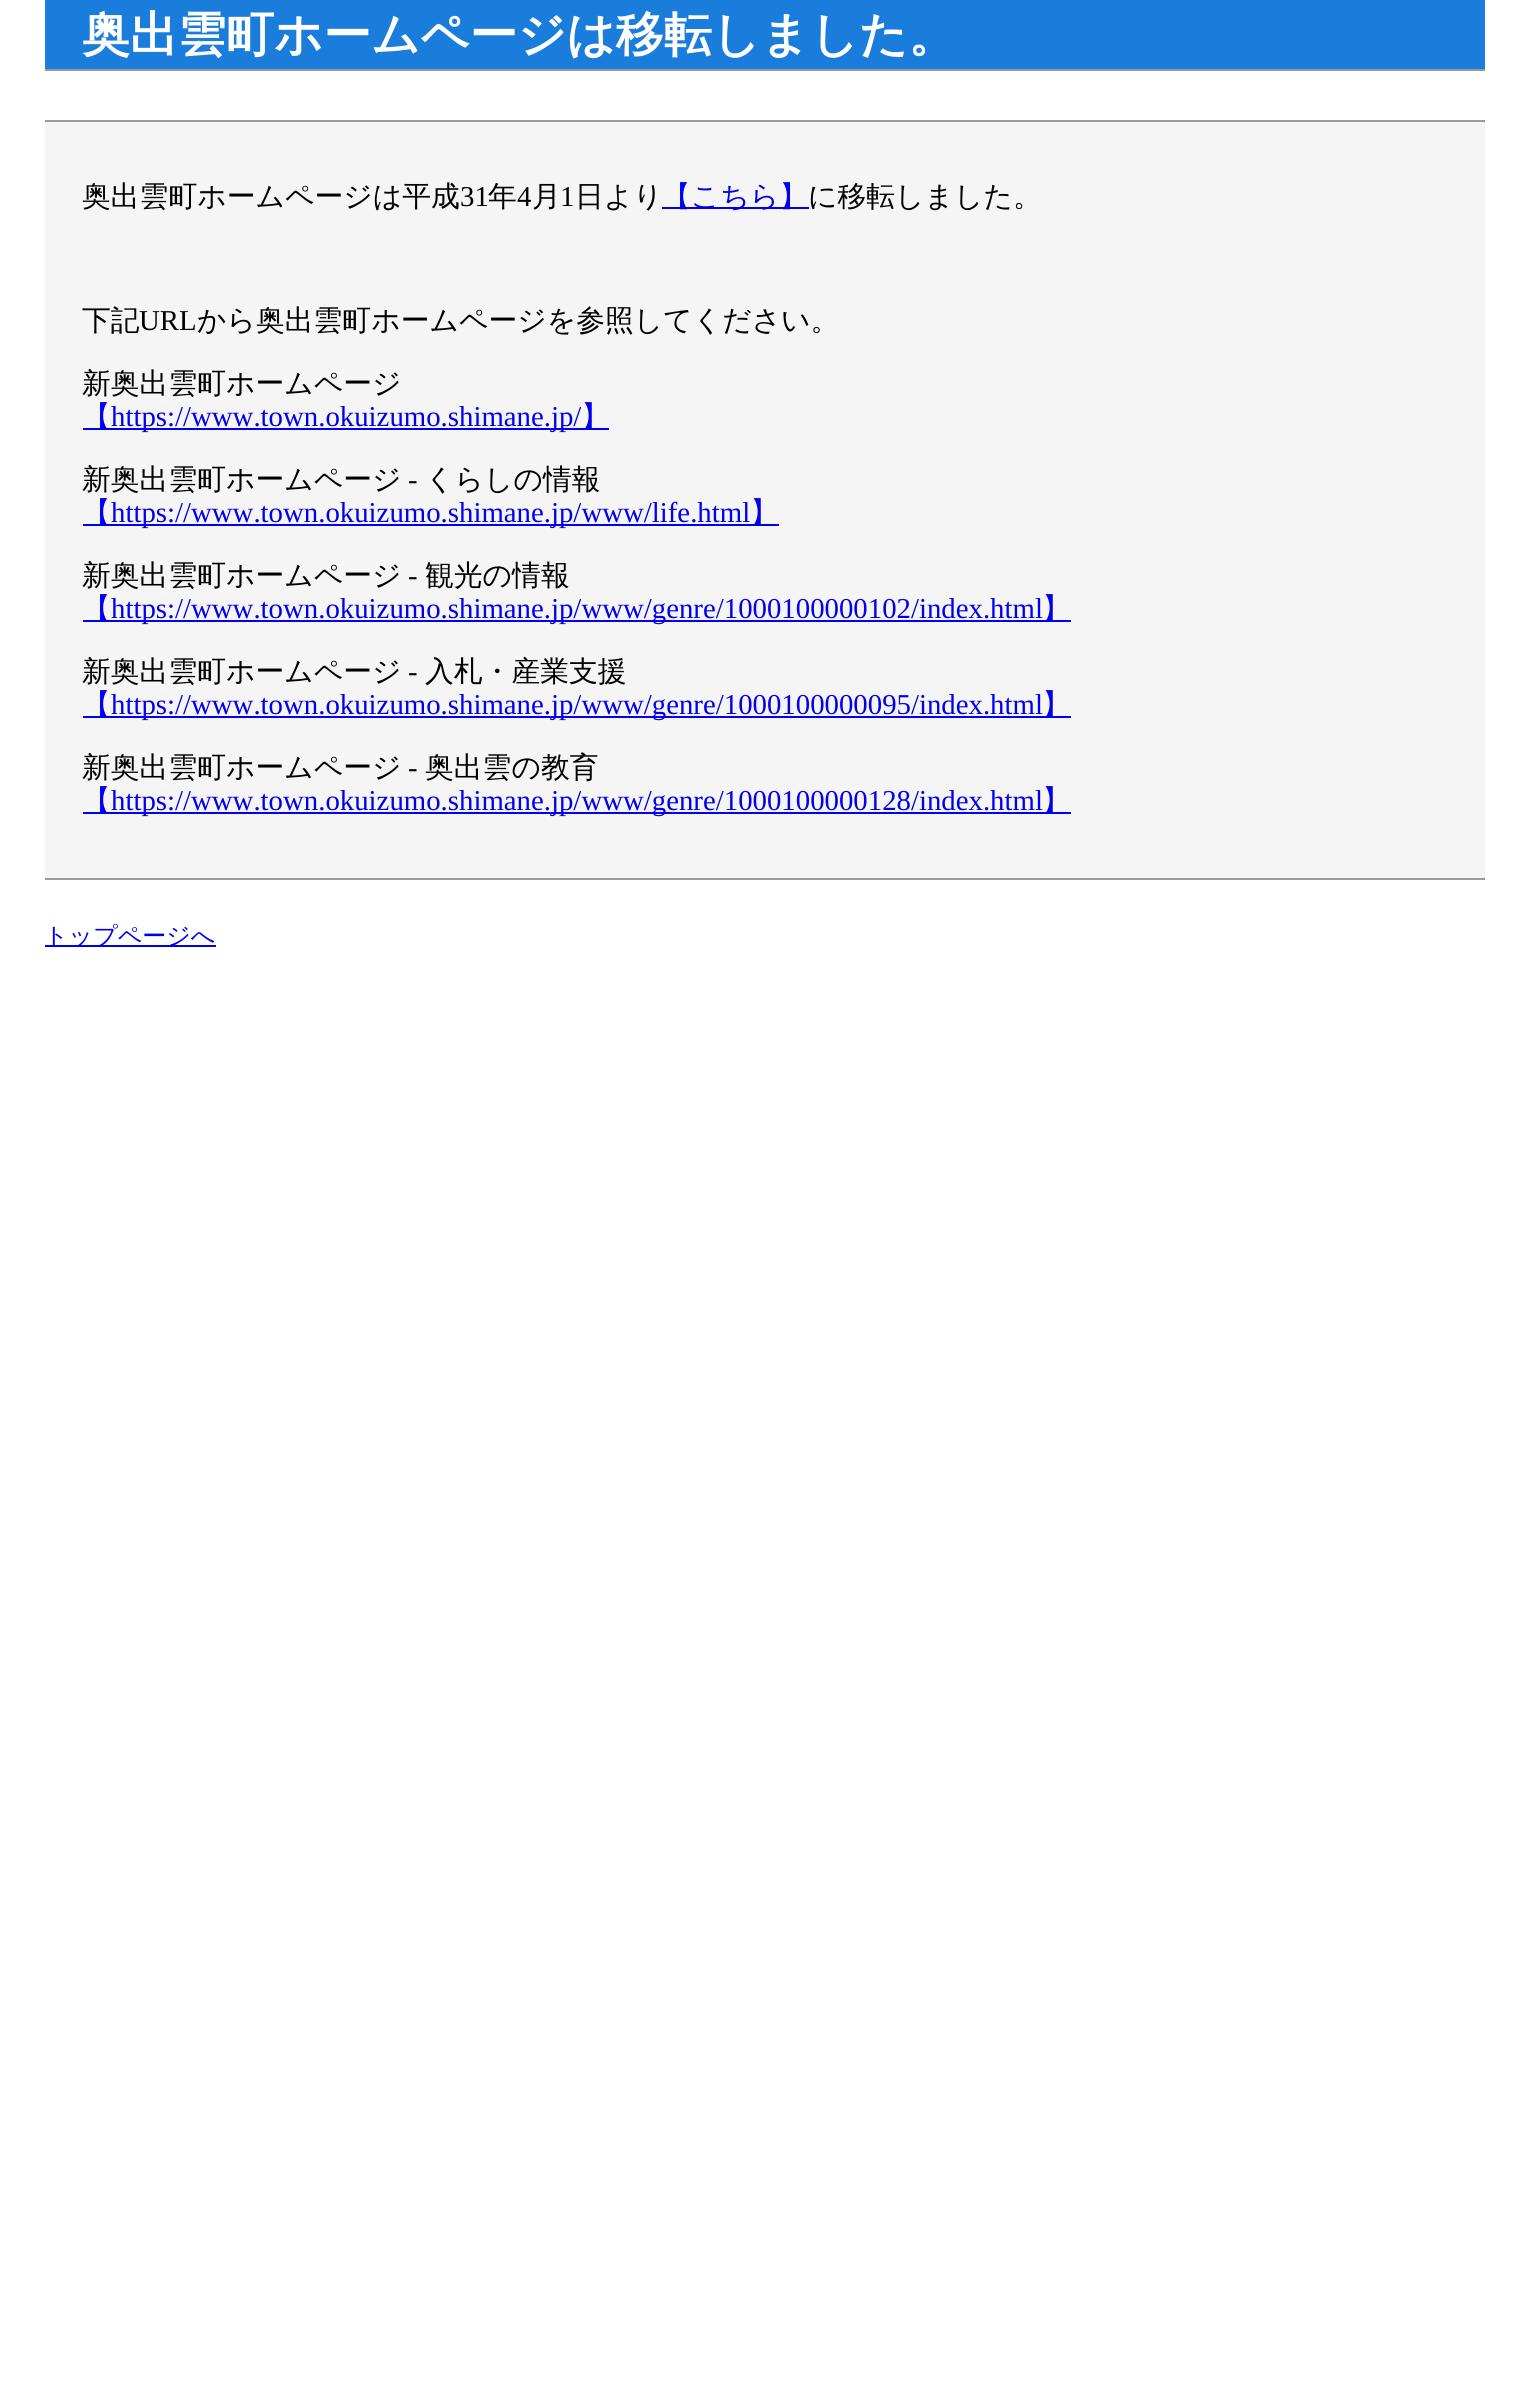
import math
import cairo


def use_color(cr, r, g, b):
  cr.set_source_rgb(r / 255, g / 255, b / 255)

def text(cr, x, y, s, family, size, color, bold=False, italic=False):
  cr.select_font_face(family, cairo.FONT_SLANT_ITALIC if italic else cairo.FONT_SLANT_NORMAL, cairo.FONT_WEIGHT_BOLD if bold else cairo.FONT_WEIGHT_NORMAL)
  cr.set_font_size(size)
  use_color(cr, *color)
  cr.move_to(x, y)
  cr.show_text(s)

def box(cr, x, y, w, h, *color):
  use_color(cr, *color)
  cr.rectangle(x, y, w, h)
  cr.fill()

def draw(cr):
  use_color(cr, 255, 255, 255)
  cr.paint()
  box(cr, 45, 122, 1440, 756, 245, 245, 245)
  box(cr, 45, 0, 1440, 69, 26, 125, 219)
  box(cr, 45, 69, 1440, 2, 153, 153, 153)
  box(cr, 45, 120, 1440, 2, 153, 153, 153)
  box(cr, 662, 207, 147, 2, 0, 0, 238)
  box(cr, 83, 428, 526, 2, 0, 0, 238)
  box(cr, 83, 524, 696, 2, 0, 0, 238)
  box(cr, 83, 620, 988, 2, 0, 0, 238)
  box(cr, 83, 716, 988, 2, 0, 0, 238)
  box(cr, 83, 812, 988, 2, 0, 0, 238)
  box(cr, 45, 878, 1440, 2, 153, 153, 153)
  box(cr, 45, 945, 171, 2, 0, 0, 238)
  text(cr, 82, 51, "奥出雲町ホームページは移転しました。", "WenQuanYi Zen Hei", 48, (255, 255, 255), bold=True)
  text(cr, 82, 206, "奥出雲町ホームページは平成", "WenQuanYi Zen Hei Medium", 28.8, (0, 0, 0))
  text(cr, 460, 206, "31", "Liberation Serif", 28.8, (0, 0, 0))
  text(cr, 488, 206, "年", "WenQuanYi Zen Hei Medium", 28.8, (0, 0, 0))
  text(cr, 517, 206, "4", "Liberation Serif", 28.8, (0, 0, 0))
  text(cr, 532, 206, "月", "WenQuanYi Zen Hei Medium", 28.8, (0, 0, 0))
  text(cr, 560, 206, "1", "Liberation Serif", 28.8, (0, 0, 0))
  text(cr, 575, 206, "日より", "WenQuanYi Zen Hei Medium", 28.8, (0, 0, 0))
  text(cr, 662, 206, "【こちら】", "WenQuanYi Zen Hei Medium", 28.8, (0, 0, 238))
  text(cr, 808, 206, "に移転しました。", "WenQuanYi Zen Hei Medium", 28.8, (0, 0, 0))
  text(cr, 82, 330, "下記", "WenQuanYi Zen Hei Medium", 28.8, (0, 0, 0))
  text(cr, 139, 330, "URL", "Liberation Serif", 28.8, (0, 0, 0))
  text(cr, 197, 330, "から奥出雲町ホームページを参照してください。", "WenQuanYi Zen Hei Medium", 28.8, (0, 0, 0))
  text(cr, 82, 393, "新奥出雲町ホームページ", "WenQuanYi Zen Hei Medium", 28.8, (0, 0, 0))
  text(cr, 82, 426, "【", "WenQuanYi Zen Hei Medium", 28.8, (0, 0, 238))
  text(cr, 111, 426, "https://www.town.okuizumo.shimane.jp/", "Liberation Serif", 28.8, (0, 0, 238))
  text(cr, 581, 426, "】", "WenQuanYi Zen Hei Medium", 28.8, (0, 0, 238))
  text(cr, 82, 489, "新奥出雲町ホームページ", "WenQuanYi Zen Hei Medium", 28.8, (0, 0, 0))
  text(cr, 408, 489, "-", "Liberation Serif", 28.8, (0, 0, 0))
  text(cr, 425, 489, "くらしの情報", "WenQuanYi Zen Hei Medium", 28.8, (0, 0, 0))
  text(cr, 82, 522, "【", "WenQuanYi Zen Hei Medium", 28.8, (0, 0, 238))
  text(cr, 111, 522, "https://www.town.okuizumo.shimane.jp/www/life.html", "Liberation Serif", 28.8, (0, 0, 238))
  text(cr, 750, 522, "】", "WenQuanYi Zen Hei Medium", 28.8, (0, 0, 238))
  text(cr, 82, 585, "新奥出雲町ホームページ", "WenQuanYi Zen Hei Medium", 28.8, (0, 0, 0))
  text(cr, 408, 585, "-", "Liberation Serif", 28.8, (0, 0, 0))
  text(cr, 425, 585, "観光の情報", "WenQuanYi Zen Hei Medium", 28.8, (0, 0, 0))
  text(cr, 82, 618, "【", "WenQuanYi Zen Hei Medium", 28.8, (0, 0, 238))
  text(cr, 111, 618, "https://www.town.okuizumo.shimane.jp/www/genre/1000100000102/index.html", "Liberation Serif", 28.8, (0, 0, 238))
  text(cr, 1042, 618, "】", "WenQuanYi Zen Hei Medium", 28.8, (0, 0, 238))
  text(cr, 82, 681, "新奥出雲町ホームページ", "WenQuanYi Zen Hei Medium", 28.8, (0, 0, 0))
  text(cr, 408, 681, "-", "Liberation Serif", 28.8, (0, 0, 0))
  text(cr, 425, 681, "入札・産業支援", "WenQuanYi Zen Hei Medium", 28.8, (0, 0, 0))
  text(cr, 82, 714, "【", "WenQuanYi Zen Hei Medium", 28.8, (0, 0, 238))
  text(cr, 111, 714, "https://www.town.okuizumo.shimane.jp/www/genre/1000100000095/index.html", "Liberation Serif", 28.8, (0, 0, 238))
  text(cr, 1042, 714, "】", "WenQuanYi Zen Hei Medium", 28.8, (0, 0, 238))
  text(cr, 82, 777, "新奥出雲町ホームページ", "WenQuanYi Zen Hei Medium", 28.8, (0, 0, 0))
  text(cr, 408, 777, "-", "Liberation Serif", 28.8, (0, 0, 0))
  text(cr, 425, 777, "奥出雲の教育", "WenQuanYi Zen Hei Medium", 28.8, (0, 0, 0))
  text(cr, 82, 810, "【", "WenQuanYi Zen Hei Medium", 28.8, (0, 0, 238))
  text(cr, 111, 810, "https://www.town.okuizumo.shimane.jp/www/genre/1000100000128/index.html", "Liberation Serif", 28.8, (0, 0, 238))
  text(cr, 1042, 810, "】", "WenQuanYi Zen Hei Medium", 28.8, (0, 0, 238))
  text(cr, 44, 944, "トップページへ", "WenQuanYi Zen Hei Medium", 24, (0, 0, 238))


surface = cairo.ImageSurface(cairo.FORMAT_RGB24, 1528, 2403)
cr = cairo.Context(surface)
options = cairo.FontOptions()
options.set_hint_metrics(cairo.HINT_METRICS_OFF)
options.set_hint_style(cairo.HINT_STYLE_NONE)
cr.set_font_options(options)
cr.set_miter_limit(4)
draw(cr)
surface.write_to_png("out.png")
